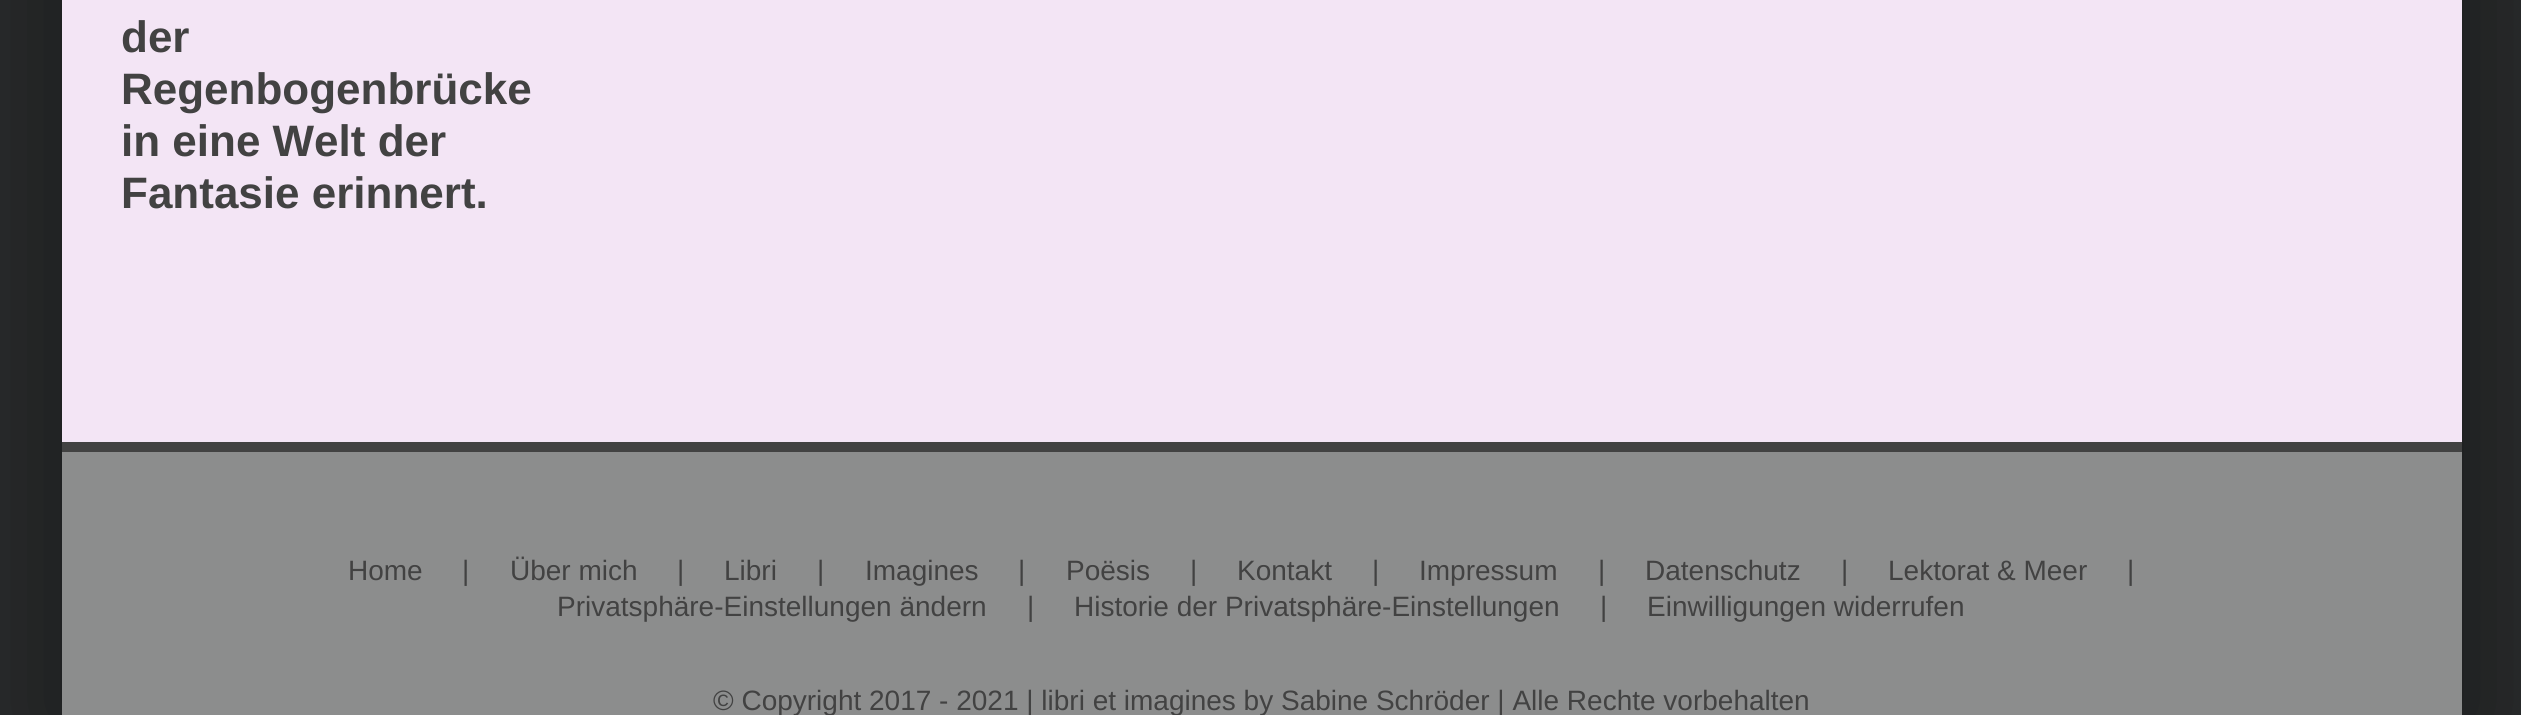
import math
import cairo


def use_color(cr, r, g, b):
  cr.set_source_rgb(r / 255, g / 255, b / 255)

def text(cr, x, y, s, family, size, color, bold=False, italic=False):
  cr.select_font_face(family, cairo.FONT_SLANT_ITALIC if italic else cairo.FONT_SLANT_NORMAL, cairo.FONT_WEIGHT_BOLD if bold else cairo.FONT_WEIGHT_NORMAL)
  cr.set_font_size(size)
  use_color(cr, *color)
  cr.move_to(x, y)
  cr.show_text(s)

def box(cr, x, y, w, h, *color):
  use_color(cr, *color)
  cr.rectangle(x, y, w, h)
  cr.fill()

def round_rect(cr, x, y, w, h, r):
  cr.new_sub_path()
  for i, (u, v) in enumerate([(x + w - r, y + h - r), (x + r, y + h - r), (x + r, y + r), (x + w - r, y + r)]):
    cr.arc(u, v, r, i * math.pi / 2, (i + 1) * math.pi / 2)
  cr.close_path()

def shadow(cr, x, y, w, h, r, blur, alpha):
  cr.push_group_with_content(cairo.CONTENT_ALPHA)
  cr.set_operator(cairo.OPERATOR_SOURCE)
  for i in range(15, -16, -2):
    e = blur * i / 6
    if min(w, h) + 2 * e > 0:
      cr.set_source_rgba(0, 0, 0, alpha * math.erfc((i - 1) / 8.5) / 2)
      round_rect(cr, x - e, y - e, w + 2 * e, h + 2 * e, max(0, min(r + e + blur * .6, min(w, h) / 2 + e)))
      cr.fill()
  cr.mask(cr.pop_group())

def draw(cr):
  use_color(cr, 40, 42, 43)
  cr.paint()
  use_color(cr, 0, 0, 0)
  shadow(cr, 52, -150, 2420, 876, 0, 50, 0.35)
  box(cr, 62, 0, 2400, 442, 243, 229, 245)
  box(cr, 62, 452, 2400, 263, 140, 141, 141)
  box(cr, 62, 442, 2400, 10, 66, 66, 66)
  text(cr, 121, 52, "der", "Liberation Sans", 44, (66, 66, 66), bold=True)
  text(cr, 121, 104, "Regenbogenbrücke", "Liberation Sans", 44, (66, 66, 66), bold=True)
  text(cr, 121, 156, "in eine Welt der", "Liberation Sans", 44, (66, 66, 66), bold=True)
  text(cr, 121, 208, "Fantasie erinnert.", "Liberation Sans", 44, (66, 66, 66), bold=True)
  text(cr, 348, 580, "Home", "Liberation Sans", 28, (66, 66, 66))
  text(cr, 462, 580, "|", "Liberation Sans", 28, (66, 66, 66))
  text(cr, 510, 580, "Über mich", "Liberation Sans", 28, (66, 66, 66))
  text(cr, 677, 580, "|", "Liberation Sans", 28, (66, 66, 66))
  text(cr, 724, 580, "Libri", "Liberation Sans", 28, (66, 66, 66))
  text(cr, 817, 580, "|", "Liberation Sans", 28, (66, 66, 66))
  text(cr, 865, 580, "Imagines", "Liberation Sans", 28, (66, 66, 66))
  text(cr, 1018, 580, "|", "Liberation Sans", 28, (66, 66, 66))
  text(cr, 1066, 580, "Poësis", "Liberation Sans", 28, (66, 66, 66))
  text(cr, 1190, 580, "|", "Liberation Sans", 28, (66, 66, 66))
  text(cr, 1237, 580, "Kontakt", "Liberation Sans", 28, (66, 66, 66))
  text(cr, 1372, 580, "|", "Liberation Sans", 28, (66, 66, 66))
  text(cr, 1419, 580, "Impressum", "Liberation Sans", 28, (66, 66, 66))
  text(cr, 1598, 580, "|", "Liberation Sans", 28, (66, 66, 66))
  text(cr, 1645, 580, "Datenschutz", "Liberation Sans", 28, (66, 66, 66))
  text(cr, 1841, 580, "|", "Liberation Sans", 28, (66, 66, 66))
  text(cr, 1888, 580, "Lektorat & Meer", "Liberation Sans", 28, (66, 66, 66))
  text(cr, 2127, 580, "|", "Liberation Sans", 28, (66, 66, 66))
  text(cr, 557, 616, "Privatsphäre-Einstellungen ändern", "Liberation Sans", 28, (66, 66, 66))
  text(cr, 1027, 616, "|", "Liberation Sans", 28, (66, 66, 66))
  text(cr, 1074, 616, "Historie der Privatsphäre-Einstellungen", "Liberation Sans", 28, (66, 66, 66))
  text(cr, 1600, 616, "|", "Liberation Sans", 28, (66, 66, 66))
  text(cr, 1647, 616, "Einwilligungen widerrufen", "Liberation Sans", 28, (66, 66, 66))
  text(cr, 713, 710, "© Copyright 2017 - 2021 | libri et imagines by Sabine Schröder | Alle Rechte vorbehalten", "Liberation Sans", 28, (66, 66, 66))


surface = cairo.ImageSurface(cairo.FORMAT_RGB24, 2521, 715)
cr = cairo.Context(surface)
options = cairo.FontOptions()
options.set_hint_metrics(cairo.HINT_METRICS_OFF)
options.set_hint_style(cairo.HINT_STYLE_NONE)
cr.set_font_options(options)
cr.set_miter_limit(4)
draw(cr)
surface.write_to_png("out.png")
